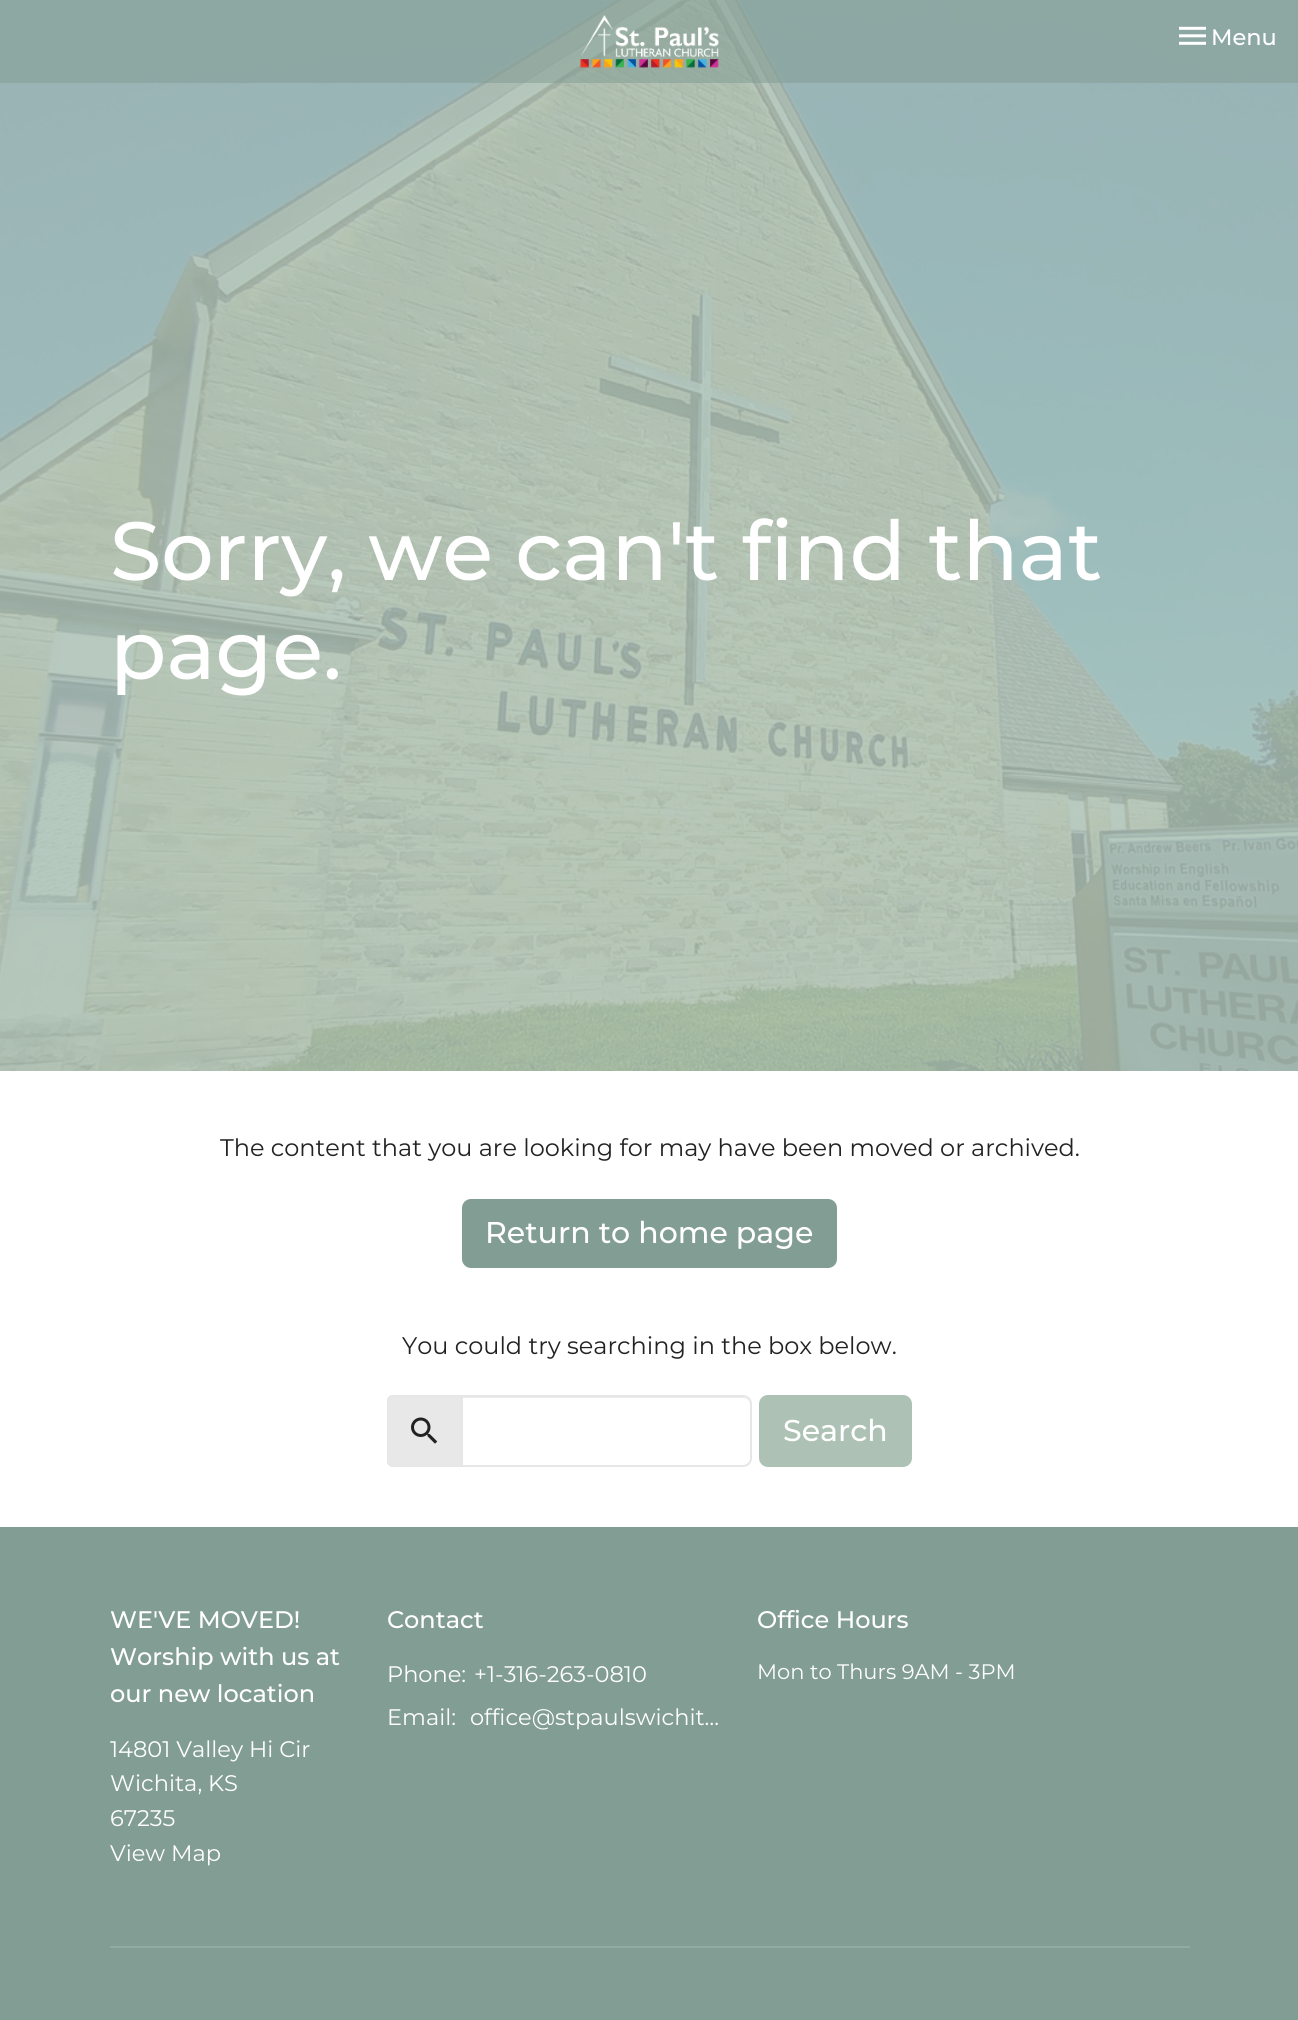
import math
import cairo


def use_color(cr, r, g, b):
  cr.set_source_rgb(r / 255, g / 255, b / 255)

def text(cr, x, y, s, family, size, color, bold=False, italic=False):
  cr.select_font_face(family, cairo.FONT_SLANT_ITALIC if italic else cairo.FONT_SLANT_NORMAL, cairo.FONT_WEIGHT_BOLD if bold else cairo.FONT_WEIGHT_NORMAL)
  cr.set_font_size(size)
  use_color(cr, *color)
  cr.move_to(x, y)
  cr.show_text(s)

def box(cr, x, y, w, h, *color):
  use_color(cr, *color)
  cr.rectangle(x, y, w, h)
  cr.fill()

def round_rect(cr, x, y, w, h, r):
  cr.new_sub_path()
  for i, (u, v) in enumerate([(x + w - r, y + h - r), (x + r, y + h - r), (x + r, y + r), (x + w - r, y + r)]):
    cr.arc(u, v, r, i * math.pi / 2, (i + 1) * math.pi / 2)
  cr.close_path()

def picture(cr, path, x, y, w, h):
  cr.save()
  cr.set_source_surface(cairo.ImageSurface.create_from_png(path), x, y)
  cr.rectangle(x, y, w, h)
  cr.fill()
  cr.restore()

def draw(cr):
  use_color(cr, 255, 255, 255)
  cr.paint()
  picture(cr, "img_03.png", 0, 0, 1298, 1071)
  cr.set_source_rgba(0.51, 0.616, 0.576, 0.53)
  cr.rectangle(0, 0, 1298, 83)
  cr.fill()
  picture(cr, "img_01.png", 580, 15, 139, 53)
  picture(cr, "img_02.png", 1179, 26, 27, 19)
  use_color(cr, 130, 157, 147)
  round_rect(cr, 462, 1199, 375, 69, 9)
  cr.fill()
  use_color(cr, 232, 232, 232)
  cr.new_path()
  cr.move_to(393, 1395)
  cr.line_to(461, 1395)
  cr.line_to(461, 1467)
  cr.line_to(393, 1467)
  cr.curve_to(389.5, 1467, 387, 1464.5, 387, 1461)
  cr.line_to(387, 1401)
  cr.curve_to(387, 1397.5, 389.5, 1395, 393, 1395)
  cr.close_path()
  cr.fill()
  use_color(cr, 230, 230, 230)
  cr.set_fill_rule(cairo.FILL_RULE_EVEN_ODD)
  cr.new_path()
  cr.move_to(393, 1395)
  cr.line_to(460, 1395)
  cr.line_to(460, 1467)
  cr.line_to(393, 1467)
  cr.curve_to(390, 1467, 387, 1464, 387, 1461)
  cr.line_to(387, 1401)
  cr.curve_to(387, 1398, 390, 1395, 393, 1395)
  cr.close_path()
  cr.move_to(393, 1396)
  cr.line_to(460, 1396)
  cr.line_to(460, 1466)
  cr.line_to(393, 1466)
  cr.curve_to(391, 1466, 388, 1463, 388, 1461)
  cr.line_to(388, 1401)
  cr.curve_to(388, 1399, 391, 1396, 393, 1396)
  cr.close_path()
  cr.fill()
  picture(cr, "img_04.png", 411, 1417, 27, 27)
  use_color(cr, 236, 236, 236)
  cr.set_fill_rule(cairo.FILL_RULE_WINDING)
  cr.new_path()
  cr.move_to(462, 1398)
  cr.line_to(742, 1398)
  cr.curve_to(747, 1398, 750, 1401, 750, 1406)
  cr.curve_to(750, 1401, 747, 1397, 742, 1397)
  cr.line_to(462, 1397)
  cr.close_path()
  cr.fill()
  cr.new_path()
  cr.move_to(462, 1396)
  cr.line_to(743, 1396)
  cr.curve_to(747.5, 1396, 751, 1399.5, 751, 1404)
  cr.line_to(751, 1458)
  cr.curve_to(751, 1462.5, 747.5, 1466, 743, 1466)
  cr.line_to(462, 1466)
  cr.close_path()
  use_color(cr, 230, 230, 230)
  cr.stroke()
  use_color(cr, 173, 194, 181)
  round_rect(cr, 759, 1395, 153, 72, 9)
  cr.fill()
  box(cr, 0, 1527, 1298, 493, 130, 157, 147)
  box(cr, 110, 1946, 1080, 2, 147, 170, 162)
  text(cr, 1211, 45, "Menu", "Montserrat Medium", 22.5, (255, 255, 255))
  text(cr, 110, 580, "Sorry, we can't find that", "Montserrat Medium", 82.5, (255, 255, 255))
  text(cr, 110, 679, "page.", "Montserrat Medium", 82.5, (255, 255, 255))
  text(cr, 220, 1156, "The content that you are looking for may have been moved or archived.", "Montserrat", 24, (34, 34, 34))
  text(cr, 485, 1243, "Return to home page", "Montserrat Medium", 30, (255, 255, 255))
  text(cr, 402, 1354, "You could try searching in the box below.", "Montserrat", 24, (34, 34, 34))
  text(cr, 783, 1441, "Search", "Montserrat Medium", 30, (255, 255, 255))
  text(cr, 110, 1628, "WE'VE MOVED!", "Montserrat Medium", 24, (255, 255, 255))
  text(cr, 110, 1665, "Worship with us at", "Montserrat Medium", 24, (255, 255, 255))
  text(cr, 110, 1702, "our new location", "Montserrat Medium", 24, (255, 255, 255))
  text(cr, 110, 1757, "14801 Valley Hi Cir", "Montserrat", 22.5, (255, 255, 255))
  text(cr, 110, 1791, "Wichita, KS", "Montserrat", 22.5, (255, 255, 255))
  text(cr, 110, 1826, "67235", "Montserrat", 22.5, (255, 255, 255))
  text(cr, 110, 1861, "View Map", "Montserrat", 22.5, (255, 255, 255))
  text(cr, 387, 1628, "Contact", "Montserrat Medium", 24, (255, 255, 255))
  text(cr, 387, 1682, "Phone:", "Montserrat", 22.5, (255, 255, 255))
  text(cr, 474, 1682, "+1-316-263-0810", "Montserrat", 22.5, (255, 255, 255))
  text(cr, 387, 1725, "Email:", "Montserrat", 22.5, (255, 255, 255))
  text(cr, 470, 1725, "office@stpaulswichit…", "Montserrat", 22.5, (255, 255, 255))
  text(cr, 757, 1628, "Office Hours", "Montserrat Medium", 24, (255, 255, 255))
  text(cr, 757, 1679, "Mon to Thurs 9AM - 3PM", "Montserrat", 21, (255, 255, 255))


surface = cairo.ImageSurface(cairo.FORMAT_RGB24, 1298, 2020)
cr = cairo.Context(surface)
options = cairo.FontOptions()
options.set_hint_metrics(cairo.HINT_METRICS_OFF)
options.set_hint_style(cairo.HINT_STYLE_NONE)
cr.set_font_options(options)
cr.set_miter_limit(4)
draw(cr)
surface.write_to_png("out.png")
